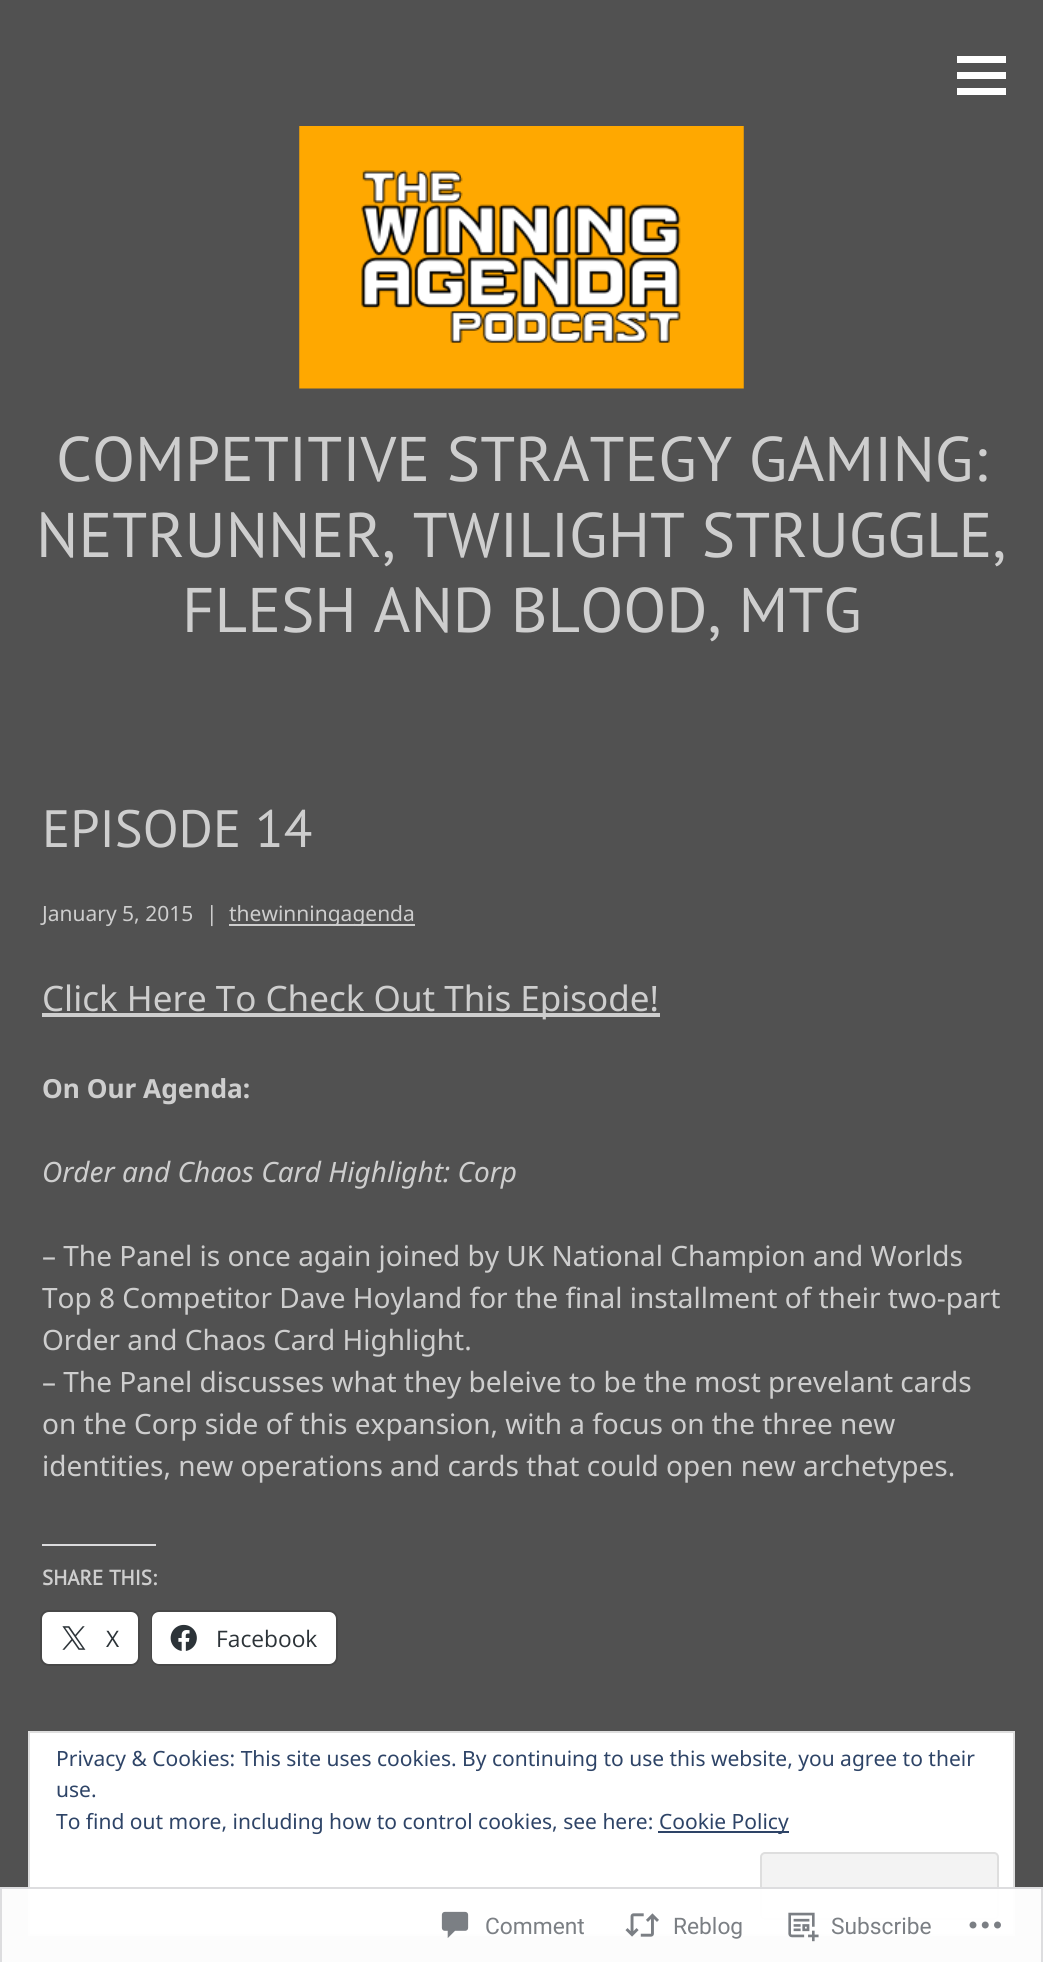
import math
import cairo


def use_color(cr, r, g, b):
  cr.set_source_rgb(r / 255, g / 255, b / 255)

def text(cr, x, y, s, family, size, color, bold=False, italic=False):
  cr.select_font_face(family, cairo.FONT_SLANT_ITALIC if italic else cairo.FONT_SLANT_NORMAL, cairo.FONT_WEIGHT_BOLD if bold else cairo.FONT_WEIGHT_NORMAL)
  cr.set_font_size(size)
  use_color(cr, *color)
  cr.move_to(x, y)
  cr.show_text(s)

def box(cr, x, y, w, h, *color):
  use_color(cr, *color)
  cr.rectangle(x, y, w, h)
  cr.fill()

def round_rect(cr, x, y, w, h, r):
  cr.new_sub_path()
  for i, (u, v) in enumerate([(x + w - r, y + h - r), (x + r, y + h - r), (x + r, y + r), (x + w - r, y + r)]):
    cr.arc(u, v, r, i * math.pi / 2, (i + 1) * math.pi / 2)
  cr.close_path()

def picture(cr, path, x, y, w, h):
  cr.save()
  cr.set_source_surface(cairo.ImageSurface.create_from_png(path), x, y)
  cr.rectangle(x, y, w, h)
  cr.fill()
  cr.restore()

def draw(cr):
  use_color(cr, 81, 81, 81)
  cr.paint()
  box(cr, 957, 56, 49, 7, 255, 255, 255)
  box(cr, 957, 72, 49, 7, 255, 255, 255)
  box(cr, 957, 88, 49, 7, 255, 255, 255)
  picture(cr, "img_01.png", 299, 126, 445, 263)
  box(cr, 229, 924, 186, 2, 206, 206, 206)
  box(cr, 42, 1013, 618, 4, 206, 206, 206)
  box(cr, 42, 1544, 114, 2, 220, 220, 222)
  round_rect(cr, 41, 1611, 98, 54, 8)
  use_color(cr, 71, 71, 71)
  cr.stroke()
  use_color(cr, 255, 255, 255)
  round_rect(cr, 42, 1612, 96, 52, 7)
  cr.fill()
  picture(cr, "img_02.png", 62, 1626, 24, 24)
  round_rect(cr, 152, 1611, 185, 54, 8)
  use_color(cr, 71, 71, 71)
  cr.stroke()
  use_color(cr, 255, 255, 255)
  round_rect(cr, 152, 1612, 184, 52, 7)
  cr.fill()
  picture(cr, "img_03.png", 170, 1624, 27, 27)
  cr.rectangle(29, 1732, 985, 203)
  cr.fill_preserve()
  use_color(cr, 222, 222, 222)
  cr.stroke()
  box(cr, 658, 1831, 131, 2, 46, 68, 103)
  use_color(cr, 243, 243, 243)
  round_rect(cr, 761, 1853, 237, 66, 4)
  cr.fill_preserve()
  use_color(cr, 222, 222, 222)
  cr.stroke()
  cr.set_source_rgba(1, 1, 1, 0.98)
  cr.rectangle(0, 1887, 1043, 75)
  cr.fill()
  cr.rectangle(1, 1888, 1041, 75)
  cr.set_source_rgba(0.863, 0.863, 0.871, 0.98)
  cr.stroke()
  picture(cr, "img_04.png", 441, 1911, 28, 27)
  picture(cr, "img_05.png", 625, 1913, 34, 24)
  picture(cr, "img_06.png", 788, 1912, 31, 30)
  picture(cr, "img_07.png", 969, 1921, 32, 8)
  text(cr, 56, 481, "COMPETITIVE STRATEGY GAMING:", "PT Sans", 63, (206, 206, 206))
  text(cr, 36, 557, "NETRUNNER, TWILIGHT STRUGGLE,", "PT Sans", 63, (206, 206, 206))
  text(cr, 182, 632, "FLESH AND BLOOD, MTG", "PT Sans", 63, (206, 206, 206))
  text(cr, 42, 847, "EPISODE 14", "PT Sans", 52.5, (206, 206, 206))
  text(cr, 42, 921, "January 5, 2015", "Noto Sans", 21, (206, 206, 206))
  text(cr, 206, 921, "|", "Noto Sans", 21, (206, 206, 206))
  text(cr, 229, 921, "thewinningagenda", "Noto Sans", 21, (206, 206, 206))
  text(cr, 42, 1011, "Click Here To Check Out This Episode!", "Noto Sans", 35, (206, 206, 206))
  text(cr, 42, 1098, "On Our Agenda:", "Noto Sans", 26.25, (206, 206, 206), bold=True)
  text(cr, 42, 1182, "Order and Chaos Card Highlight: Corp", "Noto Sans", 28, (206, 206, 206), italic=True)
  text(cr, 42, 1266, "– The Panel is once again joined by UK National Champion and Worlds", "Noto Sans", 28, (206, 206, 206))
  text(cr, 42, 1308, "Top 8 Competitor Dave Hoyland for the final installment of their two-part", "Noto Sans", 28, (206, 206, 206))
  text(cr, 42, 1350, "Order and Chaos Card Highlight.", "Noto Sans", 28, (206, 206, 206))
  text(cr, 42, 1392, "– The Panel discusses what they beleive to be the most prevelant cards", "Noto Sans", 28, (206, 206, 206))
  text(cr, 42, 1434, "on the Corp side of this expansion, with a focus on the three new", "Noto Sans", 28, (206, 206, 206))
  text(cr, 42, 1476, "identities, new operations and cards that could open new archetypes.", "Noto Sans", 28, (206, 206, 206))
  text(cr, 42, 1585, "SHARE THIS:", "PT Sans", 21, (206, 206, 206), bold=True)
  text(cr, 106, 1647, "X", "Open Sans", 22.75, (44, 51, 56))
  text(cr, 216, 1647, "Facebook", "Open Sans", 22.75, (44, 51, 56))
  text(cr, 56, 1766, "Privacy & Cookies: This site uses cookies. By continuing to use this website, you agree to their", "Noto Sans", 21, (46, 68, 103))
  text(cr, 56, 1797, "use.", "Noto Sans", 21, (46, 68, 103))
  text(cr, 56, 1829, "To find out more, including how to control cookies, see here:", "Noto Sans", 21, (46, 68, 103))
  text(cr, 659, 1829, "Cookie Policy", "Noto Sans", 21, (46, 68, 103))
  text(cr, 485, 1934, "Comment", "Roboto", 22.75, (123, 127, 132))
  text(cr, 673, 1934, "Reblog", "Roboto", 22.75, (123, 127, 132))
  text(cr, 831, 1934, "Subscribe", "Roboto", 22.75, (123, 127, 132))


surface = cairo.ImageSurface(cairo.FORMAT_RGB24, 1043, 1962)
cr = cairo.Context(surface)
options = cairo.FontOptions()
options.set_hint_metrics(cairo.HINT_METRICS_OFF)
options.set_hint_style(cairo.HINT_STYLE_NONE)
cr.set_font_options(options)
cr.set_miter_limit(4)
draw(cr)
surface.write_to_png("out.png")
